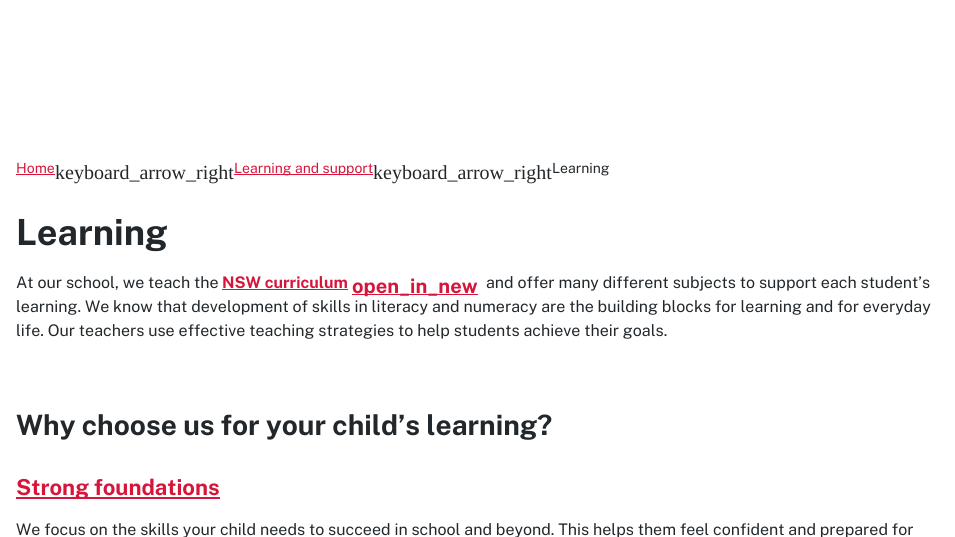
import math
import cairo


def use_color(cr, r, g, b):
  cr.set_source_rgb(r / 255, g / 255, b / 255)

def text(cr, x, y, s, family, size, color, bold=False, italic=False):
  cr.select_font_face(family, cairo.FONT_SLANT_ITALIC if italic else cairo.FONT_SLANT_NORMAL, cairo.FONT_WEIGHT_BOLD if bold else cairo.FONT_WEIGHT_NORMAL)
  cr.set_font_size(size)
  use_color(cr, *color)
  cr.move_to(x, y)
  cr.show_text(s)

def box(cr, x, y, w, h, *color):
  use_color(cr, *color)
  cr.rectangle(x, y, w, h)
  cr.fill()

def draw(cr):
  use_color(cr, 255, 255, 255)
  cr.paint()
  box(cr, 16, 174, 39, 1, 215, 21, 58)
  box(cr, 234, 174, 139, 1, 215, 21, 58)
  box(cr, 222, 289, 126, 1, 215, 21, 58)
  box(cr, 352, 294, 126, 1, 215, 21, 58)
  box(cr, 16, 497, 204, 2, 215, 21, 58)
  text(cr, 16, 173, "Home", "Public Sans", 14, (215, 21, 58))
  text(cr, 55, 179, "keyboard_arrow_right", "Liberation Serif", 20, (34, 39, 43))
  text(cr, 234, 173, "Learning and support", "Public Sans", 14, (215, 21, 58))
  text(cr, 373, 179, "keyboard_arrow_right", "Liberation Serif", 20, (34, 39, 43))
  text(cr, 552, 173, "Learning", "Public Sans", 14, (34, 39, 43))
  text(cr, 16, 245, "Learning", "Public Sans", 36, (34, 39, 43), bold=True)
  text(cr, 16, 288, "At our school, we teach the", "Public Sans", 16, (34, 39, 43))
  text(cr, 222, 288, "NSW curriculum", "Public Sans", 16, (215, 21, 58), bold=True)
  text(cr, 352, 293, "open_in_new", "Public Sans", 20, (215, 21, 58), bold=True)
  text(cr, 486, 288, "and offer many different subjects to support each student’s", "Public Sans", 16, (34, 39, 43))
  text(cr, 16, 312, "learning. We know that development of skills in literacy and numeracy are the building blocks for learning and for everyday", "Public Sans", 16, (34, 39, 43))
  text(cr, 16, 336, "life. Our teachers use effective teaching strategies to help students achieve their goals.", "Public Sans", 16, (34, 39, 43))
  text(cr, 16, 435, "Why choose us for your child’s learning?", "Public Sans", 28, (34, 39, 43), bold=True)
  text(cr, 16, 495, "Strong foundations", "Public Sans", 22, (215, 21, 58), bold=True)
  text(cr, 16, 535, "We focus on the skills your child needs to succeed in school and beyond. This helps them feel confident and prepared for", "Public Sans", 16, (34, 39, 43))


surface = cairo.ImageSurface(cairo.FORMAT_RGB24, 955, 537)
cr = cairo.Context(surface)
options = cairo.FontOptions()
options.set_hint_metrics(cairo.HINT_METRICS_OFF)
options.set_hint_style(cairo.HINT_STYLE_NONE)
cr.set_font_options(options)
cr.set_miter_limit(4)
draw(cr)
surface.write_to_png("out.png")
